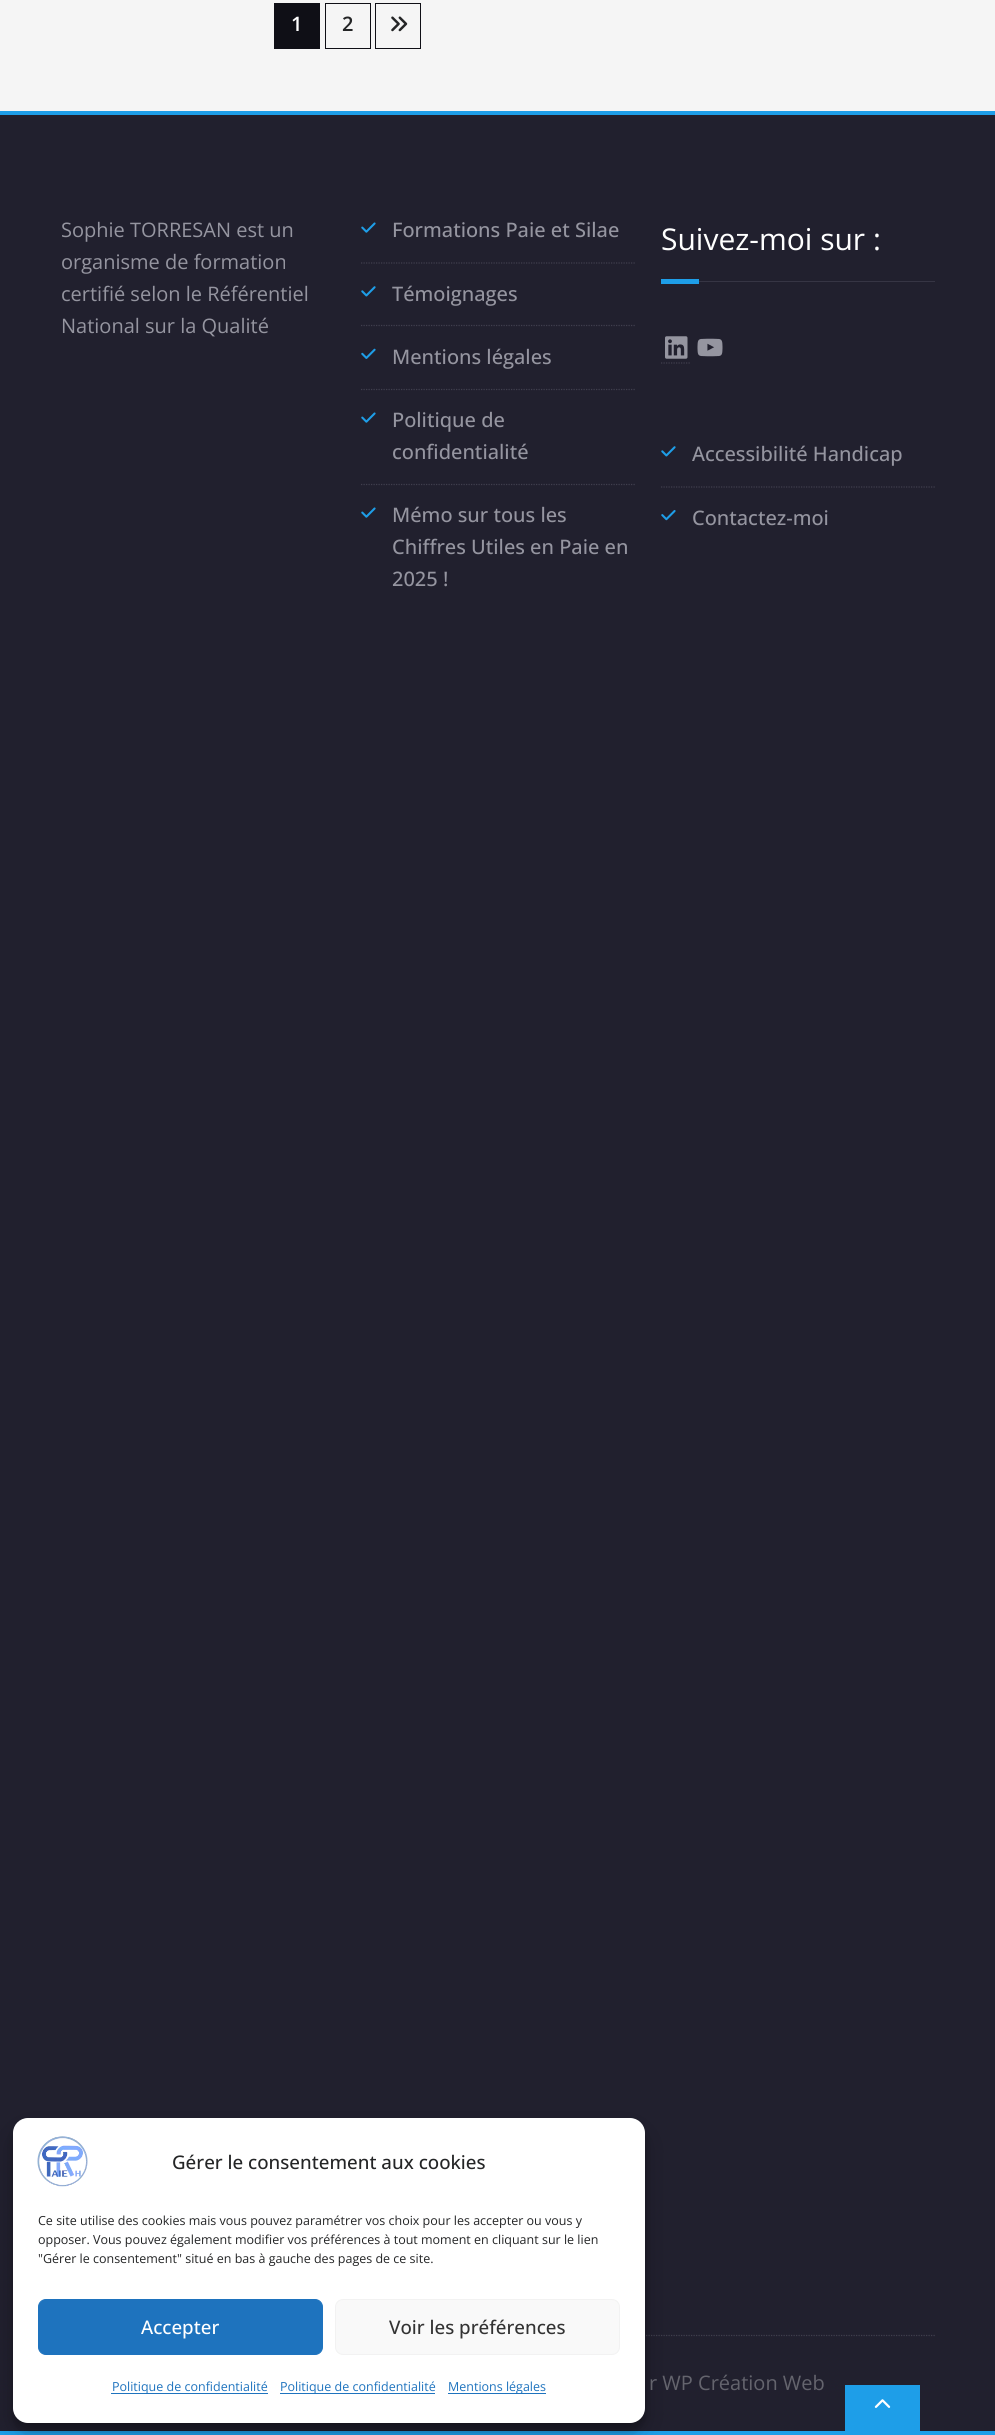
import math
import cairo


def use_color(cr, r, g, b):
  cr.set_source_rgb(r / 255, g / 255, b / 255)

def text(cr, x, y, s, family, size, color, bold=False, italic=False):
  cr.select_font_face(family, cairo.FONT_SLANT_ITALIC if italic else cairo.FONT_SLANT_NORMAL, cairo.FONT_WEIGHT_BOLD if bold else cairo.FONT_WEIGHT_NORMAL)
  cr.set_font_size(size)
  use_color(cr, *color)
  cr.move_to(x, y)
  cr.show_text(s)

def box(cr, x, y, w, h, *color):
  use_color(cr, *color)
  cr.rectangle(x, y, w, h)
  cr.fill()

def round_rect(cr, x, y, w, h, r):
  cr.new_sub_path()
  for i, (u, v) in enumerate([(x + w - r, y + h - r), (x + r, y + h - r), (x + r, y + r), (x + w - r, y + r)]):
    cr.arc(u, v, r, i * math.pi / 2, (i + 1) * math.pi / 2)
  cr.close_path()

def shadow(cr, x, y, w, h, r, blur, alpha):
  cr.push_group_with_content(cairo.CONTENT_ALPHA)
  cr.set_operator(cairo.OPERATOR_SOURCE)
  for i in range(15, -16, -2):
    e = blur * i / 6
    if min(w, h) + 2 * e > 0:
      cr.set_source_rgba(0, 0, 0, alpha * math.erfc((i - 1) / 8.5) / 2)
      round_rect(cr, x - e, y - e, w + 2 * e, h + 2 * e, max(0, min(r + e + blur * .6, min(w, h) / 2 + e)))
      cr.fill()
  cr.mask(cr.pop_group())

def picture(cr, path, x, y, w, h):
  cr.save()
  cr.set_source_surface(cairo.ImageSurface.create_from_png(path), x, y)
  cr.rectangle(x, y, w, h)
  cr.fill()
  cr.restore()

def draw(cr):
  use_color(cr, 245, 245, 245)
  cr.paint()
  box(cr, 274, 3, 46, 46, 15, 15, 22)
  cr.rectangle(325.5, 3.5, 45, 45)
  cr.set_line_width(1)
  cr.stroke()
  cr.rectangle(375.5, 3.5, 45, 45)
  cr.stroke()
  picture(cr, "img_01.png", 391, 16, 17, 16)
  box(cr, 0, 115, 995, 2316, 33, 32, 46)
  box(cr, 0, 111, 995, 4, 30, 158, 232)
  box(cr, 0, 2431, 995, 4, 30, 158, 232)
  cr.new_path()
  cr.move_to(361, 263)
  cr.line_to(635, 263)
  use_color(cr, 64, 63, 78)
  cr.set_line_width(1.2)
  cr.set_dash([1.25, 1.25])
  cr.stroke()
  picture(cr, "img_02.png", 361, 222, 15, 11)
  cr.new_path()
  cr.move_to(361, 325.5)
  cr.line_to(635, 325.5)
  cr.stroke()
  picture(cr, "img_03.png", 361, 286, 15, 11)
  cr.new_path()
  cr.move_to(361, 389.5)
  cr.line_to(635, 389.5)
  cr.stroke()
  picture(cr, "img_04.png", 361, 348, 15, 11)
  cr.new_path()
  cr.move_to(361, 484.5)
  cr.line_to(635, 484.5)
  cr.stroke()
  picture(cr, "img_02.png", 361, 412, 15, 11)
  picture(cr, "img_02.png", 361, 507, 15, 11)
  box(cr, 699, 281, 236, 1, 54, 53, 68)
  box(cr, 661, 279, 38, 5, 30, 158, 232)
  cr.new_path()
  cr.move_to(661, 363)
  cr.line_to(691, 363)
  use_color(cr, 64, 63, 78)
  cr.stroke()
  picture(cr, "img_05.png", 665, 336, 23, 23)
  picture(cr, "img_06.png", 697, 338, 26, 19)
  cr.new_path()
  cr.move_to(661, 487)
  cr.line_to(935, 487)
  cr.stroke()
  picture(cr, "img_03.png", 661, 446, 15, 11)
  picture(cr, "img_07.png", 661, 510, 15, 11)
  cr.new_path()
  cr.move_to(61, 2335.5)
  cr.line_to(935, 2335.5)
  cr.stroke()
  box(cr, 845, 2385, 75, 46, 30, 158, 232)
  picture(cr, "img_08.png", 874, 2399, 17, 9)
  use_color(cr, 0, 0, 0)
  shadow(cr, 13, 2125, 632, 305, 15, 4, 0.23)
  shadow(cr, 13, 2130, 632, 305, 15, 12.5, 0.19)
  use_color(cr, 255, 255, 255)
  round_rect(cr, 13, 2118, 632, 305, 15)
  cr.fill()
  picture(cr, "img_09.png", 37, 2136, 51, 51)
  use_color(cr, 30, 115, 190)
  round_rect(cr, 38.5, 2299.5, 284, 55, 7.5)
  cr.fill_preserve()
  cr.set_line_width(1)
  cr.set_dash([])
  cr.stroke()
  use_color(cr, 249, 249, 249)
  round_rect(cr, 335.5, 2299.5, 284, 55, 7.5)
  cr.fill_preserve()
  use_color(cr, 242, 242, 242)
  cr.stroke()
  box(cr, 111, 2393, 157, 1, 30, 115, 190)
  box(cr, 280, 2393, 155, 1, 30, 115, 190)
  box(cr, 448, 2393, 98, 1, 30, 115, 190)
  text(cr, 291, 31, "1", "Open Sans SemiBold", 20, (255, 255, 255))
  text(cr, 342, 31, "2", "Open Sans SemiBold", 20, (36, 37, 38))
  text(cr, 61, 237, "Sophie TORRESAN est un", "Open Sans", 20, (149, 149, 160))
  text(cr, 61, 269, "organisme de formation", "Open Sans", 20, (149, 149, 160))
  text(cr, 61, 301, "certifié selon le Référentiel", "Open Sans", 20, (149, 149, 160))
  text(cr, 61, 333, "National sur la Qualité", "Open Sans", 20, (149, 149, 160))
  text(cr, 392, 237, "Formations Paie et Silae", "Open Sans Medium", 20, (149, 149, 160))
  text(cr, 392, 301, "Témoignages", "Open Sans Medium", 20, (149, 149, 160))
  text(cr, 392, 364, "Mentions légales", "Open Sans Medium", 20, (149, 149, 160))
  text(cr, 392, 427, "Politique de", "Open Sans Medium", 20, (149, 149, 160))
  text(cr, 392, 459, "confidentialité", "Open Sans Medium", 20, (149, 149, 160))
  text(cr, 392, 522, "Mémo sur tous les", "Open Sans Medium", 20, (149, 149, 160))
  text(cr, 392, 554, "Chiffres Utiles en Paie en", "Open Sans Medium", 20, (149, 149, 160))
  text(cr, 392, 586, "2025 !", "Open Sans Medium", 20, (149, 149, 160))
  text(cr, 661, 250, "Suivez-moi sur :", "Open Sans", 30, (255, 255, 255))
  text(cr, 692, 461, "Accessibilité Handicap", "Open Sans Medium", 20, (149, 149, 160))
  text(cr, 692, 525, "Contactez-moi", "Open Sans Medium", 20, (149, 149, 160))
  text(cr, 649, 2390, "r WP Création Web", "Open Sans", 20, (100, 100, 109))
  text(cr, 172, 2169, "Gérer le consentement aux cookies", "Open Sans Medium", 18.75, (36, 37, 38))
  text(cr, 38, 2225, "Ce site utilise des cookies mais vous pouvez paramétrer vos choix pour les accepter ou vous y", "Open Sans", 12.5, (36, 37, 38))
  text(cr, 38, 2244, "opposer. Vous pouvez également modifier vos préférences à tout moment en cliquant sur le lien", "Open Sans", 12.5, (36, 37, 38))
  text(cr, 38, 2263, "\"Gérer le consentement\" situé en bas à gauche des pages de ce site.", "Open Sans", 12.5, (36, 37, 38))
  text(cr, 141, 2334, "Accepter", "Open Sans Medium", 18.75, (255, 255, 255))
  text(cr, 389, 2334, "Voir les préférences", "Open Sans Medium", 18.75, (51, 51, 51))
  text(cr, 112, 2391, "Politique de confidentialité", "Open Sans", 12.5, (30, 115, 190))
  text(cr, 280, 2391, "Politique de confidentialité", "Open Sans", 12.5, (30, 115, 190))
  text(cr, 448, 2391, "Mentions légales", "Open Sans", 12.5, (30, 115, 190))


surface = cairo.ImageSurface(cairo.FORMAT_RGB24, 995, 2435)
cr = cairo.Context(surface)
options = cairo.FontOptions()
options.set_hint_metrics(cairo.HINT_METRICS_OFF)
options.set_hint_style(cairo.HINT_STYLE_NONE)
cr.set_font_options(options)
cr.set_miter_limit(4)
draw(cr)
surface.write_to_png("out.png")
